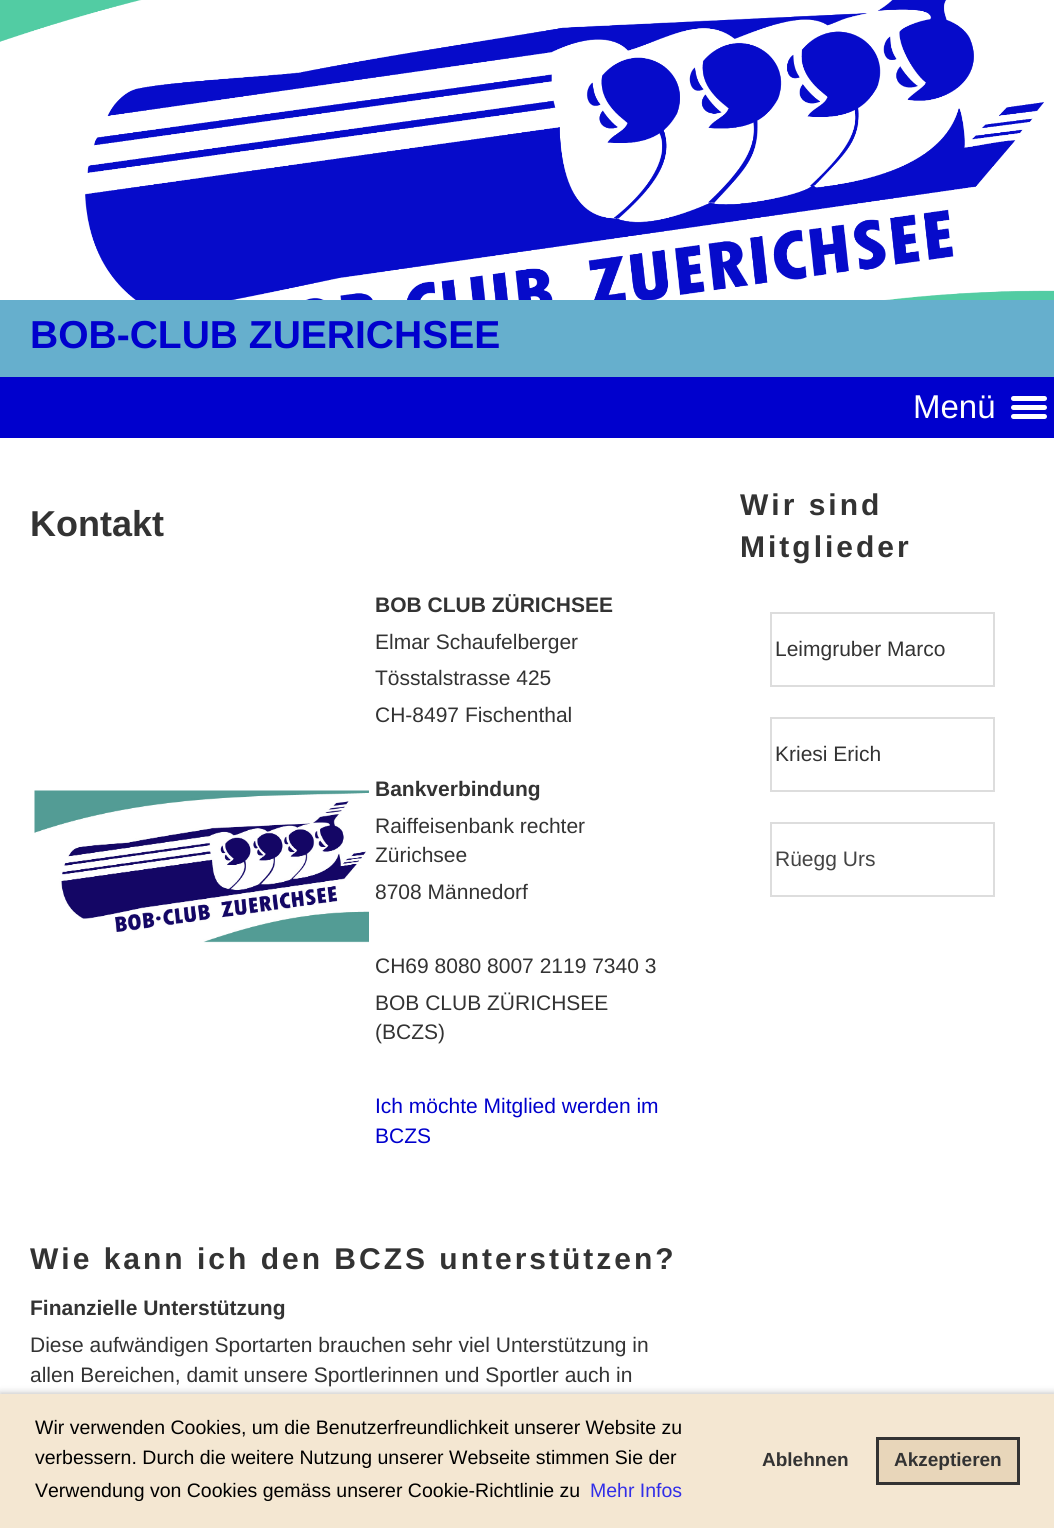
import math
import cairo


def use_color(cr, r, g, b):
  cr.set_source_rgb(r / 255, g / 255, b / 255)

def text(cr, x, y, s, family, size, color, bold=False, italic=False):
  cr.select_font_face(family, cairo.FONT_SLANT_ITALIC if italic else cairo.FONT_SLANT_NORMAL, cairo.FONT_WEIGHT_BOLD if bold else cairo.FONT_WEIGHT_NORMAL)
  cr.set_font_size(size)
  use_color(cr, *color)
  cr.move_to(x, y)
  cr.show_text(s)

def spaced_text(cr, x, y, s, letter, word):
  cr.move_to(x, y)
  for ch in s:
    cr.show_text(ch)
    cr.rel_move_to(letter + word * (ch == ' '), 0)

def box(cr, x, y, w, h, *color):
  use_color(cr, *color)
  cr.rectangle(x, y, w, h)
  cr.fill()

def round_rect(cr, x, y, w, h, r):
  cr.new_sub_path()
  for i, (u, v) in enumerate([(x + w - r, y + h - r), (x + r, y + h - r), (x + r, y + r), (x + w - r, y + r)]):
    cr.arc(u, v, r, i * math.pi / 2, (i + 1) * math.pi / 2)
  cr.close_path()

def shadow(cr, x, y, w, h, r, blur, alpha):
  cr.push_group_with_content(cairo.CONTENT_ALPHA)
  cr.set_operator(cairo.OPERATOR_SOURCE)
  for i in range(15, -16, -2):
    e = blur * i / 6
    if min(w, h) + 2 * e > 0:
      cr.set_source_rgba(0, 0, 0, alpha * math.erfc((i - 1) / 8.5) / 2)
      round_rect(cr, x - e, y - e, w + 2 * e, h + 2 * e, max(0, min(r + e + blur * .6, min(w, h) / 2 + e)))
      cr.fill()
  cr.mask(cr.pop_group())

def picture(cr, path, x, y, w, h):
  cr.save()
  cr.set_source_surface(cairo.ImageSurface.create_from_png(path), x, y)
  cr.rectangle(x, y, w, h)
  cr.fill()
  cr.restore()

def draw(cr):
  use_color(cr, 255, 255, 255)
  cr.paint()
  picture(cr, "img_01.png", 0, 0, 1054, 300)
  box(cr, 0, 300, 1054, 77, 102, 175, 205)
  box(cr, 0, 377, 1054, 61, 0, 0, 205)
  use_color(cr, 255, 255, 255)
  round_rect(cr, 1011, 396, 36, 5, 2.5)
  cr.fill()
  round_rect(cr, 1011, 405, 36, 5, 2.5)
  cr.fill()
  round_rect(cr, 1011, 414, 36, 5, 2.5)
  cr.fill()
  picture(cr, "img_02.png", 34, 790, 335, 153)
  cr.rectangle(771, 613, 223, 73)
  use_color(cr, 221, 221, 221)
  cr.stroke()
  cr.rectangle(771, 718, 223, 73)
  cr.stroke()
  cr.rectangle(771, 823, 223, 73)
  cr.stroke()
  use_color(cr, 0, 0, 0)
  shadow(cr, 0, 1394, 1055, 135, 0, 4, 0.3)
  box(cr, 0, 1394, 1054, 134, 244, 231, 210)
  use_color(cr, 232, 214, 186)
  cr.rectangle(877.5, 1438.5, 141, 45)
  cr.fill_preserve()
  use_color(cr, 51, 51, 51)
  cr.set_line_width(3)
  cr.stroke()
  text(cr, 30, 348, "BOB-CLUB ZUERICHSEE", "Liberation Sans", 39, (0, 0, 205), bold=True)
  text(cr, 913, 418, "Menü", "Liberation Sans", 33, (255, 255, 255))
  text(cr, 30, 536, "Kontakt", "Liberation Sans", 36, (51, 51, 51), bold=True)
  text(cr, 375, 612, "BOB CLUB ZÜRICHSEE", "Liberation Sans", 21, (51, 51, 51), bold=True)
  text(cr, 375, 649, "Elmar Schaufelberger", "Liberation Sans", 21, (51, 51, 51))
  text(cr, 375, 685, "Tösstalstrasse 425", "Liberation Sans", 21, (51, 51, 51))
  text(cr, 375, 722, "CH-8497 Fischenthal", "Liberation Sans", 21, (51, 51, 51))
  text(cr, 375, 796, "Bankverbindung", "Liberation Sans", 21, (51, 51, 51), bold=True)
  text(cr, 375, 833, "Raiffeisenbank rechter", "Liberation Sans", 21, (51, 51, 51))
  text(cr, 375, 862, "Zürichsee", "Liberation Sans", 21, (51, 51, 51))
  text(cr, 375, 899, "8708 Männedorf", "Liberation Sans", 21, (51, 51, 51))
  text(cr, 375, 973, "CH69 8080 8007 2119 7340 3", "Liberation Sans", 21, (51, 51, 51))
  text(cr, 375, 1010, "BOB CLUB ZÜRICHSEE", "Liberation Sans", 21, (51, 51, 51))
  text(cr, 375, 1039, "(BCZS)", "Liberation Sans", 21, (51, 51, 51))
  text(cr, 375, 1113, "Ich möchte Mitglied werden im", "Liberation Sans", 21, (0, 0, 205))
  text(cr, 375, 1143, "BCZS", "Liberation Sans", 21, (0, 0, 205))
  cr.select_font_face("Liberation Sans", cairo.FONT_SLANT_NORMAL, cairo.FONT_WEIGHT_BOLD)
  cr.set_font_size(30)
  use_color(cr, 51, 51, 51)
  spaced_text(cr, 30, 1269, "Wie kann ich den BCZS unterstützen?", 3, 0)
  text(cr, 30, 1315, "Finanzielle Unterstützung", "Liberation Sans", 21, (51, 51, 51), bold=True)
  text(cr, 30, 1352, "Diese aufwändigen Sportarten brauchen sehr viel Unterstützung in", "Liberation Sans", 21, (51, 51, 51))
  text(cr, 30, 1382, "allen Bereichen, damit unsere Sportlerinnen und Sportler auch in", "Liberation Sans", 21, (51, 51, 51))
  cr.select_font_face("Liberation Sans", cairo.FONT_SLANT_NORMAL, cairo.FONT_WEIGHT_BOLD)
  cr.set_font_size(30)
  spaced_text(cr, 740, 515, "Wir sind", 3, 0)
  spaced_text(cr, 740, 557, "Mitglieder", 3, 0)
  text(cr, 775, 656, "Leimgruber Marco", "Liberation Sans", 21, (51, 51, 51))
  text(cr, 775, 761, "Kriesi Erich", "Liberation Sans", 21, (51, 51, 51))
  text(cr, 775, 866, "Rüegg Urs", "Liberation Sans", 21, (68, 68, 68))
  text(cr, 35, 1434, "Wir verwenden Cookies, um die Benutzerfreundlichkeit unserer Website zu", "Liberation Sans", 19.5, (0, 0, 0))
  text(cr, 35, 1464, "verbessern. Durch die weitere Nutzung unserer Webseite stimmen Sie der", "Liberation Sans", 19.5, (0, 0, 0))
  text(cr, 35, 1497, "Verwendung von Cookies gemäss unserer Cookie-Richtlinie zu", "Liberation Sans", 19.5, (0, 0, 0))
  text(cr, 590, 1497, "Mehr Infos", "Liberation Sans", 19.5, (49, 46, 232))
  text(cr, 762, 1466, "Ablehnen", "Liberation Sans", 19, (51, 51, 51), bold=True)
  text(cr, 894, 1466, "Akzeptieren", "Liberation Sans", 19, (51, 51, 51), bold=True)


surface = cairo.ImageSurface(cairo.FORMAT_RGB24, 1054, 1528)
cr = cairo.Context(surface)
options = cairo.FontOptions()
options.set_hint_metrics(cairo.HINT_METRICS_OFF)
options.set_hint_style(cairo.HINT_STYLE_NONE)
cr.set_font_options(options)
cr.set_miter_limit(4)
draw(cr)
surface.write_to_png("out.png")
